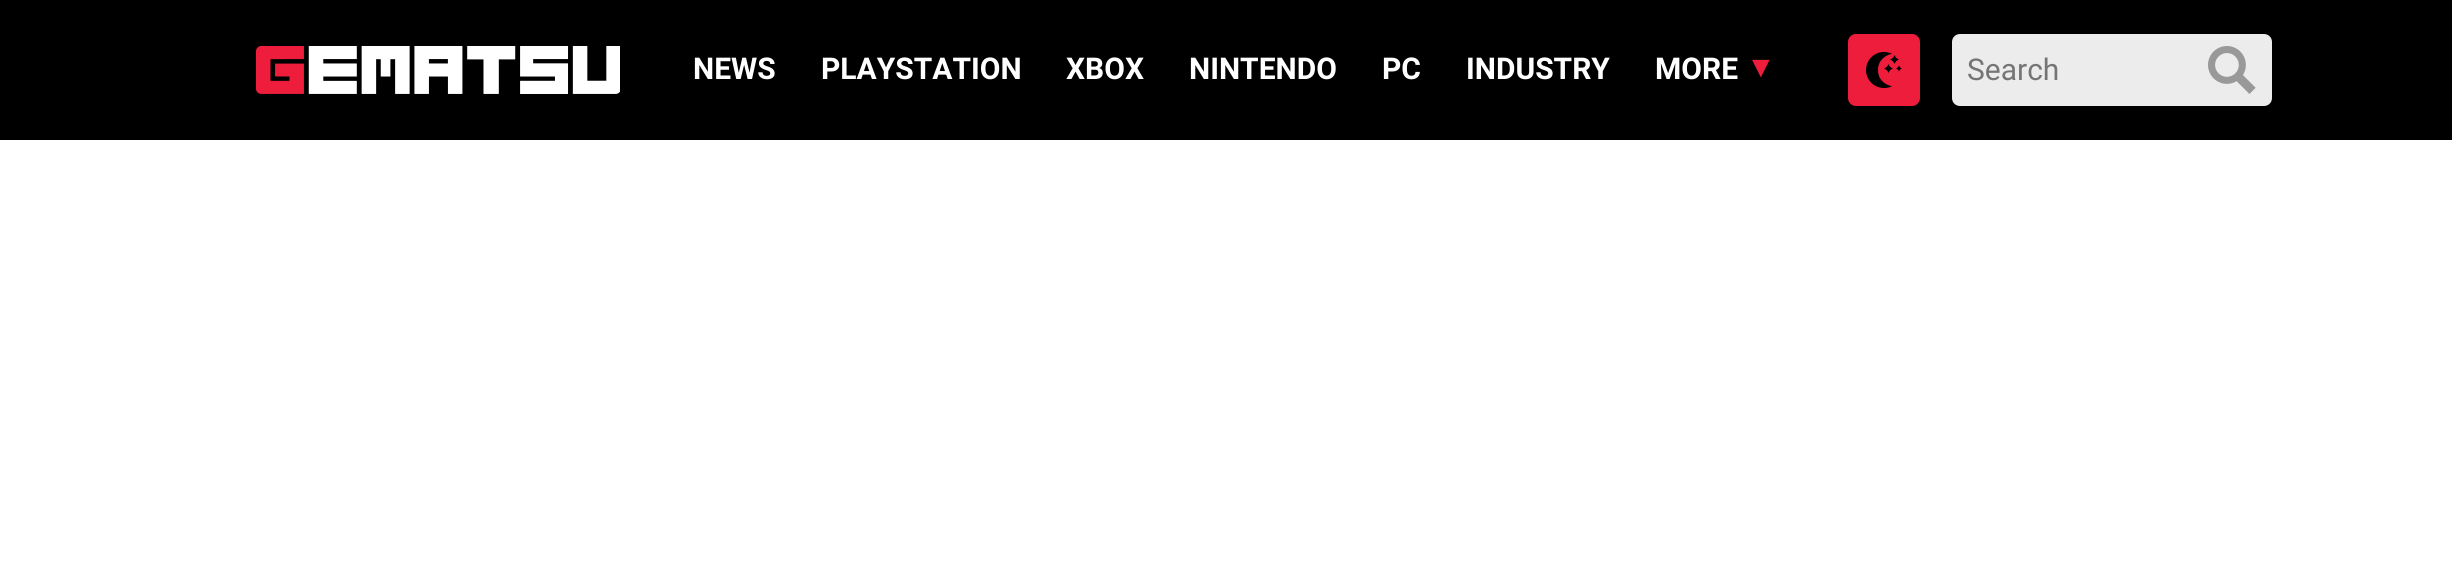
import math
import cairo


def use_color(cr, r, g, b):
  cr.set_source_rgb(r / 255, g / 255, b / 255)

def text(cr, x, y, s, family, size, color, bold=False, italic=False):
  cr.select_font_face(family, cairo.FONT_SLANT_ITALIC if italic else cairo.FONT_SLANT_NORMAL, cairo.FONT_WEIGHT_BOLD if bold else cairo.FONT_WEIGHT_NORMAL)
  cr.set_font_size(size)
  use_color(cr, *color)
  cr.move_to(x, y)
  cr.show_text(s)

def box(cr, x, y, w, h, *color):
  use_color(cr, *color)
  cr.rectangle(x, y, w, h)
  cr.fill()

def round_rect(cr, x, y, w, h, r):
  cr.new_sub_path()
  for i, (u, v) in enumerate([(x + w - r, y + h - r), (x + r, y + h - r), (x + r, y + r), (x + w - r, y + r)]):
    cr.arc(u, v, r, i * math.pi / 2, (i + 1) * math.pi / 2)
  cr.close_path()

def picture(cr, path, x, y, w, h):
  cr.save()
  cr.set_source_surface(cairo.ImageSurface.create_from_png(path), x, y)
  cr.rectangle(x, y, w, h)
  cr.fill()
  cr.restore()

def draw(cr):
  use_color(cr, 255, 255, 255)
  cr.paint()
  box(cr, 0, 0, 2452, 140, 0, 0, 0)
  picture(cr, "img_01.png", 256, 46, 364, 48)
  use_color(cr, 237, 29, 59)
  round_rect(cr, 1849, 35, 70, 70, 7)
  cr.fill_preserve()
  cr.stroke()
  picture(cr, "img_02.png", 1866, 52, 36, 36)
  use_color(cr, 236, 236, 236)
  cr.new_path()
  cr.move_to(1960, 34)
  cr.line_to(2192, 34)
  cr.line_to(2192, 106)
  cr.line_to(1960, 106)
  cr.curve_to(1955.5, 106, 1952, 102.5, 1952, 98)
  cr.line_to(1952, 42)
  cr.curve_to(1952, 37.5, 1955.5, 34, 1960, 34)
  cr.close_path()
  cr.fill()
  cr.new_path()
  cr.move_to(2192, 34)
  cr.line_to(2264, 34)
  cr.curve_to(2268.5, 34, 2272, 37.5, 2272, 42)
  cr.line_to(2272, 98)
  cr.curve_to(2272, 102.5, 2268.5, 106, 2264, 106)
  cr.line_to(2192, 106)
  cr.close_path()
  cr.fill()
  picture(cr, "img_03.png", 2208, 46, 48, 48)
  text(cr, 693, 79, "NEWS", "Roboto", 30, (255, 255, 255), bold=True)
  text(cr, 821, 79, "PLAYSTATION", "Roboto", 30, (255, 255, 255), bold=True)
  text(cr, 1066, 79, "XBOX", "Roboto", 30, (255, 255, 255), bold=True)
  text(cr, 1189, 79, "NINTENDO", "Roboto", 30, (255, 255, 255), bold=True)
  text(cr, 1382, 79, "PC", "Roboto", 30, (255, 255, 255), bold=True)
  text(cr, 1466, 79, "INDUSTRY", "Roboto", 30, (255, 255, 255), bold=True)
  text(cr, 1655, 79, "MORE", "Roboto", 30, (255, 255, 255), bold=True)
  text(cr, 1746, 77, "▼", "Liberation Sans", 30, (237, 29, 59), bold=True)
  text(cr, 1967, 80, "Search", "Roboto", 30, (117, 117, 117))


surface = cairo.ImageSurface(cairo.FORMAT_RGB24, 2452, 581)
cr = cairo.Context(surface)
options = cairo.FontOptions()
options.set_hint_metrics(cairo.HINT_METRICS_OFF)
options.set_hint_style(cairo.HINT_STYLE_NONE)
cr.set_font_options(options)
cr.set_miter_limit(4)
draw(cr)
surface.write_to_png("out.png")
